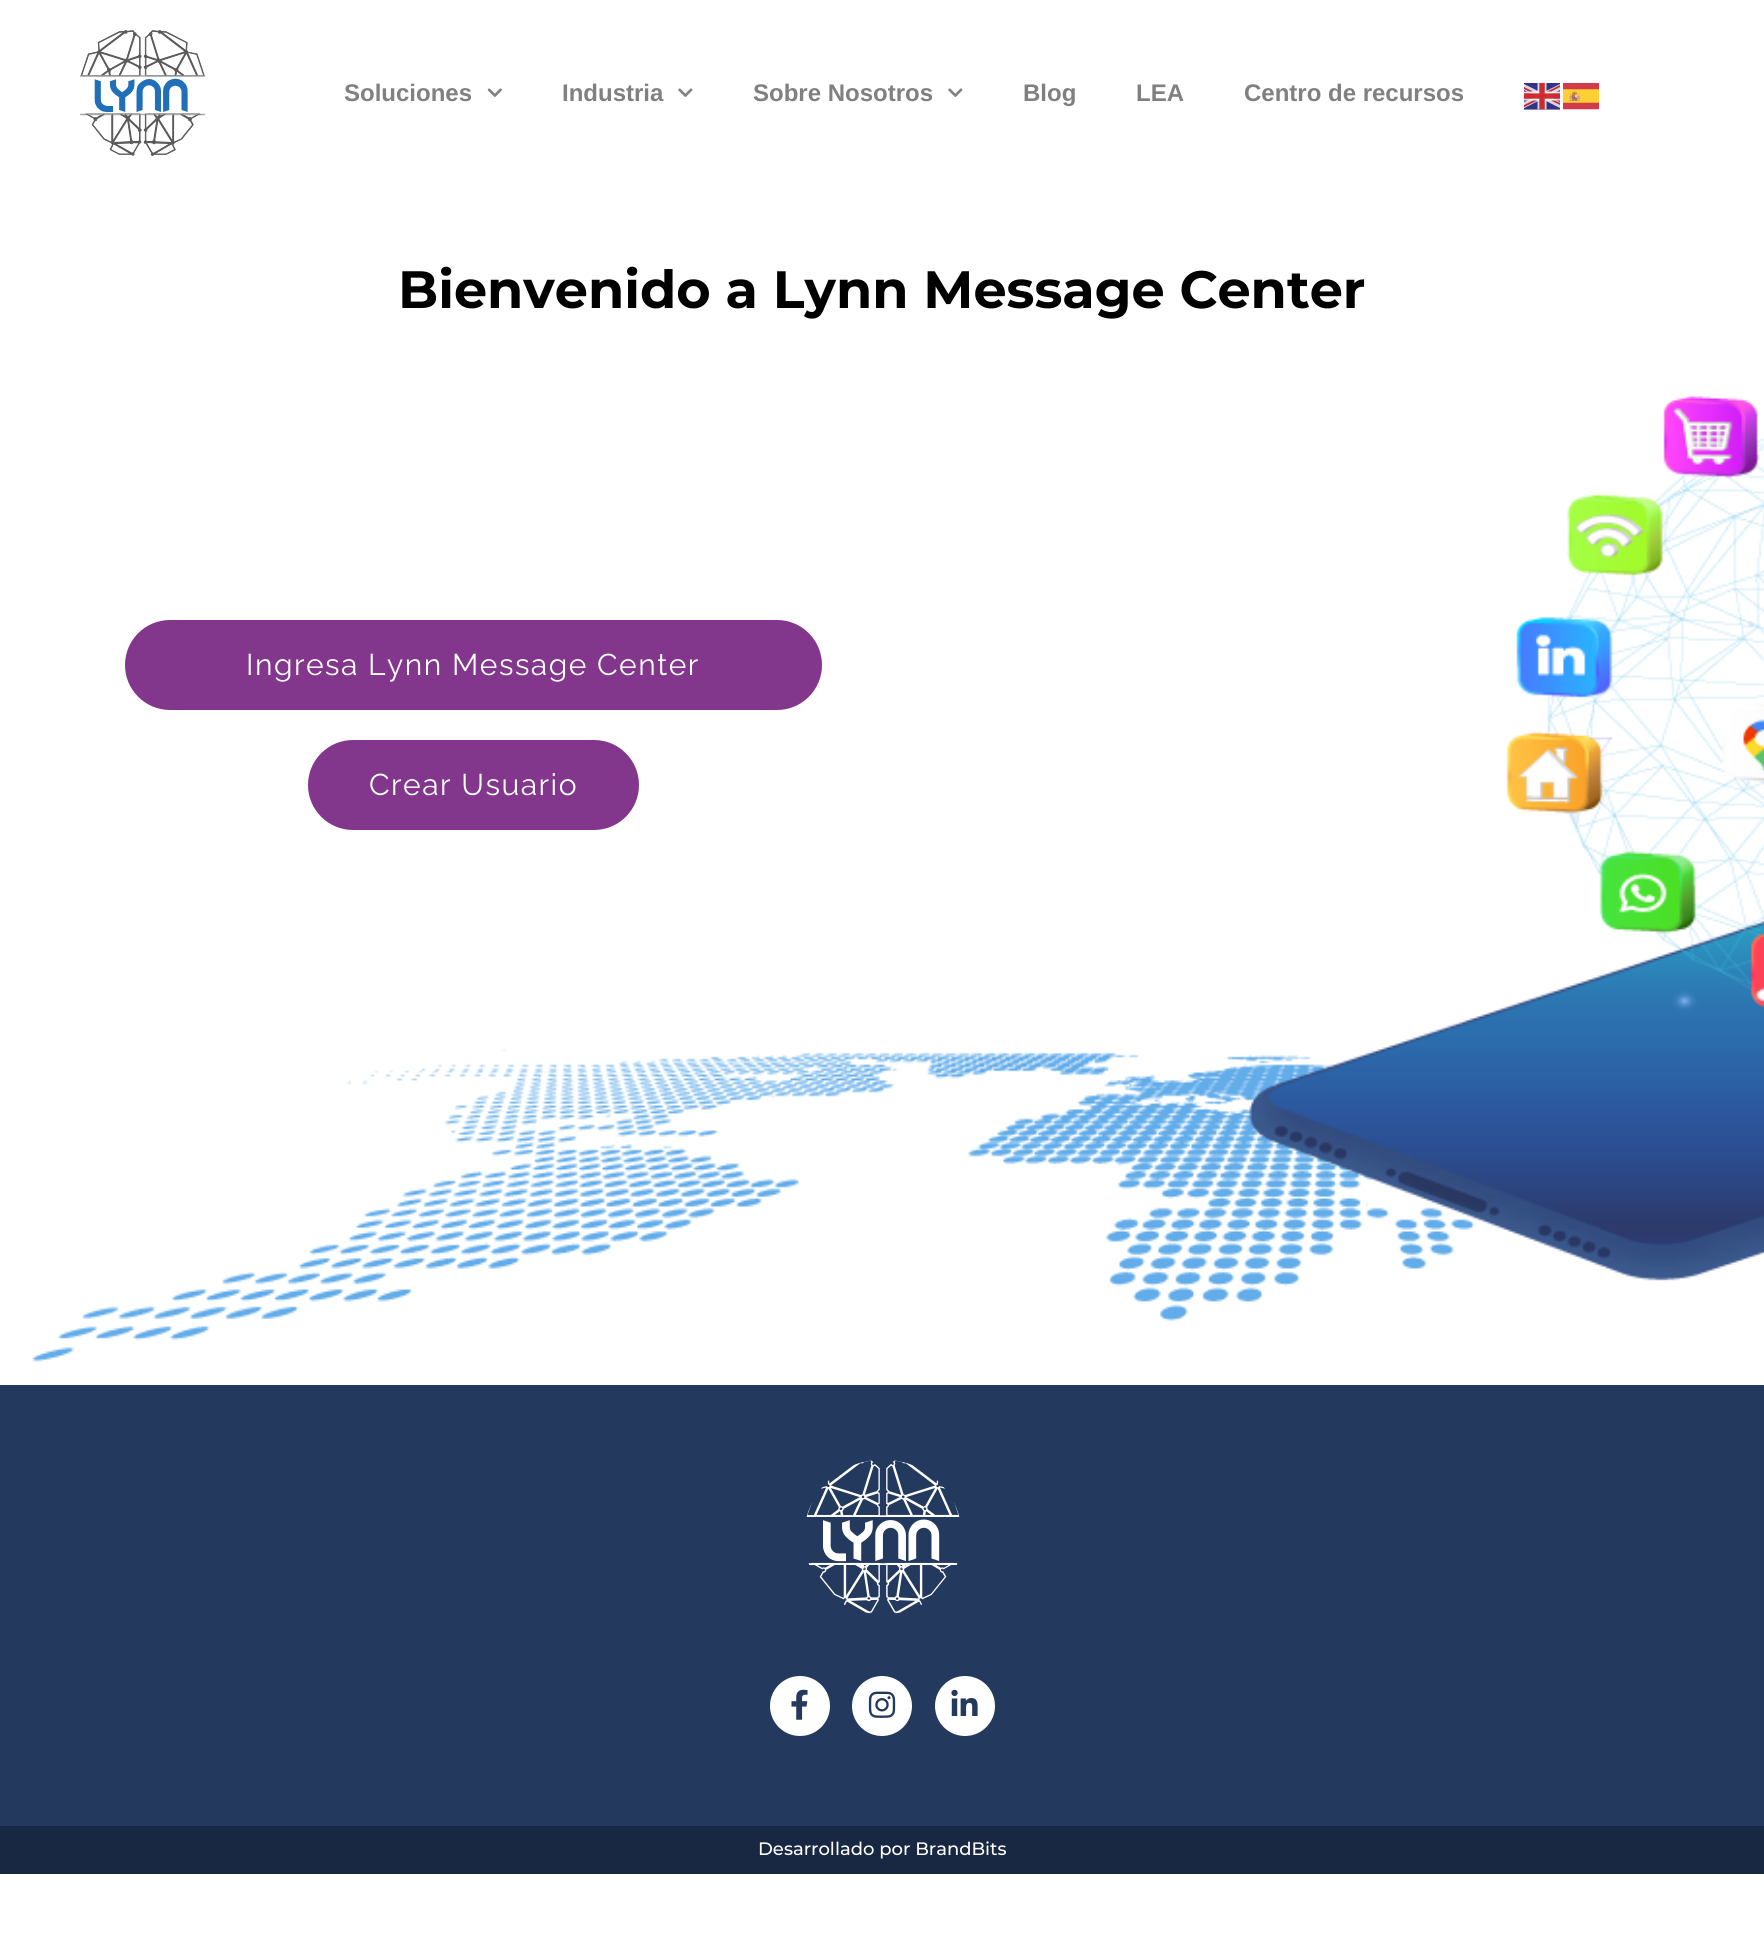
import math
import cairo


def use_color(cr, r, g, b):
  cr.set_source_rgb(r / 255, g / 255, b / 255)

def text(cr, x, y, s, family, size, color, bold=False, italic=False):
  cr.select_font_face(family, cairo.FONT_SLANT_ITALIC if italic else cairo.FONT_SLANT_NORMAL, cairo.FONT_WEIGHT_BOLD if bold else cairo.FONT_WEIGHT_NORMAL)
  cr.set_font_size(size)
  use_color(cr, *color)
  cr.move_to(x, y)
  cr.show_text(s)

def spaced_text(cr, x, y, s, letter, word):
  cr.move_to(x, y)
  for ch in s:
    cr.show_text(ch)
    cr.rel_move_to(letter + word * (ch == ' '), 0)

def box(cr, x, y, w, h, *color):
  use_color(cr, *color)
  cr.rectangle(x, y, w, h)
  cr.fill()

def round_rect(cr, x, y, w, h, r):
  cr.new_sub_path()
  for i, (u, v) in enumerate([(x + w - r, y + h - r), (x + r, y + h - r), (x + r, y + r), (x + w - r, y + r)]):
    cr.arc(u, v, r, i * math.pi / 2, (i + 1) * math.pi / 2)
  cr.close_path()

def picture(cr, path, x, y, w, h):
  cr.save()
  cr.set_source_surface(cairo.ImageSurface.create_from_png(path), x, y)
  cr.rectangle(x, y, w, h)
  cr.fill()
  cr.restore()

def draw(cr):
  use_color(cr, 255, 255, 255)
  cr.paint()
  picture(cr, "img_01.png", 80, 30, 126, 126)
  picture(cr, "img_02.png", 487, 88, 15, 9)
  picture(cr, "img_03.png", 678, 88, 15, 9)
  picture(cr, "img_03.png", 948, 88, 15, 9)
  picture(cr, "img_04.png", 1524, 83, 36, 27)
  picture(cr, "img_05.png", 1563, 83, 36, 27)
  picture(cr, "img_06.png", 32, 396, 1732, 966)
  use_color(cr, 130, 54, 140)
  round_rect(cr, 125, 620, 697, 90, 45)
  cr.fill()
  round_rect(cr, 308, 740, 331, 90, 45)
  cr.fill()
  box(cr, 0, 1385, 1764, 441, 35, 57, 94)
  picture(cr, "img_07.png", 806, 1460, 154, 154)
  use_color(cr, 255, 255, 255)
  cr.arc(800, 1706, 30, 0, 2 * math.pi)
  cr.fill()
  picture(cr, "img_08.png", 791, 1689, 17, 31)
  cr.arc(882, 1706, 30, 0, 2 * math.pi)
  cr.fill()
  picture(cr, "img_09.png", 868, 1691, 28, 27)
  cr.arc(965, 1706, 30, 0, 2 * math.pi)
  cr.fill()
  picture(cr, "img_10.png", 951, 1689, 27, 27)
  box(cr, 0, 1826, 1764, 48, 24, 40, 66)
  text(cr, 344, 101, "Soluciones", "Liberation Sans", 24, (128, 128, 128), bold=True)
  text(cr, 562, 101, "Industria", "Liberation Sans", 24, (128, 128, 128), bold=True)
  text(cr, 753, 101, "Sobre Nosotros", "Liberation Sans", 24, (128, 128, 128), bold=True)
  text(cr, 1023, 101, "Blog", "Liberation Sans", 24, (128, 128, 128), bold=True)
  text(cr, 1136, 101, "LEA", "Liberation Sans", 24, (128, 128, 128), bold=True)
  text(cr, 1244, 101, "Centro de recursos", "Liberation Sans", 24, (128, 128, 128), bold=True)
  text(cr, 398, 308, "Bienvenido a Lynn Message Center", "Montserrat", 52.5, (0, 0, 0), bold=True)
  cr.select_font_face("Raleway")
  cr.set_font_size(30)
  use_color(cr, 255, 255, 255)
  spaced_text(cr, 246, 675, "Ingresa Lynn Message Center", 1.5, 0)
  spaced_text(cr, 369, 795, "Crear Usuario", 1.5, 0)
  text(cr, 758, 1855, "Desarrollado por BrandBits", "Montserrat Medium", 18, (255, 255, 255))


surface = cairo.ImageSurface(cairo.FORMAT_RGB24, 1764, 1954)
cr = cairo.Context(surface)
options = cairo.FontOptions()
options.set_hint_metrics(cairo.HINT_METRICS_OFF)
options.set_hint_style(cairo.HINT_STYLE_NONE)
cr.set_font_options(options)
cr.set_miter_limit(4)
draw(cr)
surface.write_to_png("out.png")
